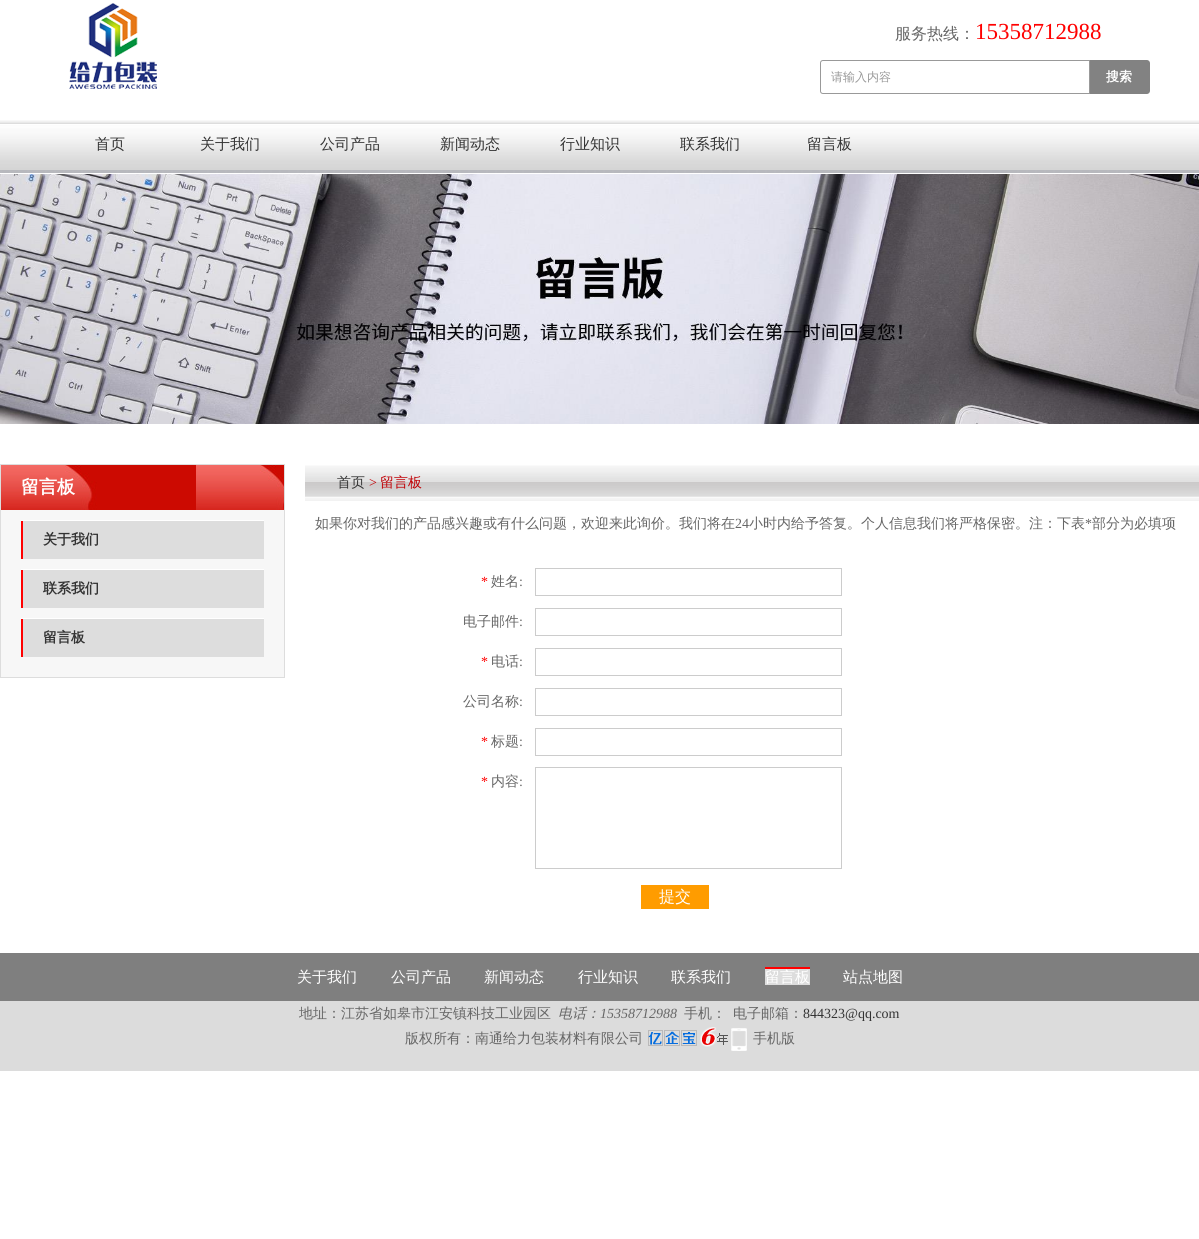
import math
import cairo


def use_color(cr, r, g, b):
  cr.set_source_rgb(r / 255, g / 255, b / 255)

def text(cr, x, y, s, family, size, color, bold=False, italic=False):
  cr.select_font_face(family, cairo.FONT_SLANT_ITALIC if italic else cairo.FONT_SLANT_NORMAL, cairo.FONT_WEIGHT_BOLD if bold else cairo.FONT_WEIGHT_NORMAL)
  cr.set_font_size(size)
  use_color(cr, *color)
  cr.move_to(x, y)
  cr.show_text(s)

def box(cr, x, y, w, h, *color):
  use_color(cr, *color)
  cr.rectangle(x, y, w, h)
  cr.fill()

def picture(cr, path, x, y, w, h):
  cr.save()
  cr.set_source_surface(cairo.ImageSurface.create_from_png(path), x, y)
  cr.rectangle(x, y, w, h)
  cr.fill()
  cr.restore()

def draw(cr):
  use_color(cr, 255, 255, 255)
  cr.paint()
  picture(cr, "img_01.png", 69, 3, 88, 86)
  cr.new_path()
  cr.move_to(823, 60.5)
  cr.line_to(1089.5, 60.5)
  cr.line_to(1089.5, 93.5)
  cr.line_to(823, 93.5)
  cr.curve_to(821.5, 93.5, 820.5, 92.5, 820.5, 91)
  cr.line_to(820.5, 63)
  cr.curve_to(820.5, 61.5, 821.5, 60.5, 823, 60.5)
  cr.close_path()
  use_color(cr, 153, 153, 153)
  cr.set_line_width(1)
  cr.stroke()
  use_color(cr, 130, 130, 130)
  cr.new_path()
  cr.move_to(1090, 60)
  cr.line_to(1147, 60)
  cr.curve_to(1148.5, 60, 1150, 61.5, 1150, 63)
  cr.line_to(1150, 91)
  cr.curve_to(1150, 92.5, 1148.5, 94, 1147, 94)
  cr.line_to(1090, 94)
  cr.close_path()
  cr.fill()
  picture(cr, "img_02.png", 0, 120, 1199, 53)
  picture(cr, "img_03.png", 0, 174, 1199, 250)
  box(cr, 1, 510, 283, 167, 247, 247, 247)
  cr.rectangle(0.5, 464.5, 284, 213)
  use_color(cr, 221, 221, 221)
  cr.stroke()
  picture(cr, "img_04.png", 1, 465, 283, 45)
  box(cr, 21, 520, 243, 1, 255, 255, 255)
  box(cr, 23, 521, 241, 38, 221, 221, 221)
  box(cr, 21, 521, 2, 38, 255, 0, 0)
  box(cr, 21, 569, 243, 1, 255, 255, 255)
  box(cr, 23, 570, 241, 38, 221, 221, 221)
  box(cr, 21, 570, 2, 38, 255, 0, 0)
  box(cr, 21, 618, 243, 1, 255, 255, 255)
  box(cr, 23, 619, 241, 38, 221, 221, 221)
  box(cr, 21, 619, 2, 38, 255, 0, 0)
  picture(cr, "img_05.png", 305, 465, 894, 36)
  cr.rectangle(535.5, 568.5, 306, 27)
  use_color(cr, 204, 204, 204)
  cr.stroke()
  cr.rectangle(535.5, 608.5, 306, 27)
  cr.stroke()
  cr.rectangle(535.5, 648.5, 306, 27)
  cr.stroke()
  cr.rectangle(535.5, 688.5, 306, 27)
  cr.stroke()
  cr.rectangle(535.5, 728.5, 306, 27)
  cr.stroke()
  cr.rectangle(535.5, 767.5, 306, 101)
  cr.stroke()
  box(cr, 641, 885, 68, 24, 255, 156, 0)
  box(cr, 0, 1001, 1199, 70, 220, 220, 220)
  box(cr, 0, 953, 1199, 48, 127, 127, 127)
  box(cr, 765, 969, 45, 16, 221, 221, 221)
  box(cr, 765, 967, 45, 2, 255, 0, 0)
  picture(cr, "img_06.png", 648, 1027, 80, 20)
  picture(cr, "img_07.png", 731, 1028, 16, 23)
  text(cr, 895, 39, "服务热线：", "WenQuanYi Zen Hei Medium", 16, (102, 102, 102))
  text(cr, 975, 39, "15358712988", "Liberation Serif", 23, (255, 0, 0))
  text(cr, 831, 81, "请输入内容", "WenQuanYi Zen Hei Medium", 12, (153, 153, 153))
  text(cr, 1106, 81, "搜索", "WenQuanYi Zen Hei", 13, (255, 255, 255), bold=True)
  text(cr, 95, 149, "首页", "WenQuanYi Zen Hei Medium", 15, (51, 51, 51))
  text(cr, 200, 149, "关于我们", "WenQuanYi Zen Hei Medium", 15, (51, 51, 51))
  text(cr, 320, 149, "公司产品", "WenQuanYi Zen Hei Medium", 15, (51, 51, 51))
  text(cr, 440, 149, "新闻动态", "WenQuanYi Zen Hei Medium", 15, (51, 51, 51))
  text(cr, 560, 149, "行业知识", "WenQuanYi Zen Hei Medium", 15, (51, 51, 51))
  text(cr, 680, 149, "联系我们", "WenQuanYi Zen Hei Medium", 15, (51, 51, 51))
  text(cr, 807, 149, "留言板", "WenQuanYi Zen Hei Medium", 15, (51, 51, 51))
  text(cr, 21, 493, "留言板", "WenQuanYi Zen Hei", 18, (255, 255, 255), bold=True)
  text(cr, 43, 544, "关于我们", "WenQuanYi Zen Hei", 14, (51, 51, 51), bold=True)
  text(cr, 43, 593, "联系我们", "WenQuanYi Zen Hei", 14, (51, 51, 51), bold=True)
  text(cr, 43, 642, "留言板", "WenQuanYi Zen Hei", 14, (51, 51, 51), bold=True)
  text(cr, 337, 487, "首页", "WenQuanYi Zen Hei Medium", 14, (51, 51, 51))
  text(cr, 369, 487, ">", "Liberation Serif", 14, (193, 0, 5))
  text(cr, 380, 487, "留言板", "WenQuanYi Zen Hei Medium", 14, (193, 0, 5))
  text(cr, 315, 528, "如果你对我们的产品感兴趣或有什么问题，欢迎来此询价。我们将在", "WenQuanYi Zen Hei Medium", 14, (102, 102, 102))
  text(cr, 735, 528, "24", "Liberation Serif", 14, (102, 102, 102))
  text(cr, 749, 528, "小时内给予答复。个人信息我们将严格保密。注：下表", "WenQuanYi Zen Hei Medium", 14, (102, 102, 102))
  text(cr, 1085, 528, "*", "Liberation Serif", 14, (102, 102, 102))
  text(cr, 1092, 528, "部分为必填项", "WenQuanYi Zen Hei Medium", 14, (102, 102, 102))
  text(cr, 481, 586, "*", "Liberation Serif", 14, (255, 0, 0))
  text(cr, 491, 586, "姓名", "WenQuanYi Zen Hei Medium", 14, (102, 102, 102))
  text(cr, 519, 586, ":", "Liberation Serif", 14, (102, 102, 102))
  text(cr, 463, 626, "电子邮件", "WenQuanYi Zen Hei Medium", 14, (102, 102, 102))
  text(cr, 519, 626, ":", "Liberation Serif", 14, (102, 102, 102))
  text(cr, 481, 666, "*", "Liberation Serif", 14, (255, 0, 0))
  text(cr, 491, 666, "电话", "WenQuanYi Zen Hei Medium", 14, (102, 102, 102))
  text(cr, 519, 666, ":", "Liberation Serif", 14, (102, 102, 102))
  text(cr, 463, 706, "公司名称", "WenQuanYi Zen Hei Medium", 14, (102, 102, 102))
  text(cr, 519, 706, ":", "Liberation Serif", 14, (102, 102, 102))
  text(cr, 481, 746, "*", "Liberation Serif", 14, (255, 0, 0))
  text(cr, 491, 746, "标题", "WenQuanYi Zen Hei Medium", 14, (102, 102, 102))
  text(cr, 519, 746, ":", "Liberation Serif", 14, (102, 102, 102))
  text(cr, 481, 786, "*", "Liberation Serif", 14, (255, 0, 0))
  text(cr, 491, 786, "内容", "WenQuanYi Zen Hei Medium", 14, (102, 102, 102))
  text(cr, 519, 786, ":", "Liberation Serif", 14, (102, 102, 102))
  text(cr, 659, 902, "提交", "WenQuanYi Zen Hei Medium", 16, (255, 255, 255))
  text(cr, 297, 982, "关于我们", "WenQuanYi Zen Hei Medium", 15, (255, 255, 255))
  text(cr, 391, 982, "公司产品", "WenQuanYi Zen Hei Medium", 15, (255, 255, 255))
  text(cr, 484, 982, "新闻动态", "WenQuanYi Zen Hei Medium", 15, (255, 255, 255))
  text(cr, 578, 982, "行业知识", "WenQuanYi Zen Hei Medium", 15, (255, 255, 255))
  text(cr, 671, 982, "联系我们", "WenQuanYi Zen Hei Medium", 15, (255, 255, 255))
  text(cr, 765, 982, "留言板", "WenQuanYi Zen Hei Medium", 15, (255, 255, 255))
  text(cr, 843, 982, "站点地图", "WenQuanYi Zen Hei Medium", 15, (255, 255, 255))
  text(cr, 299, 1018, "地址：江苏省如皋市江安镇科技工业园区", "WenQuanYi Zen Hei Medium", 14, (102, 102, 102))
  text(cr, 558, 1018, "电话：", "WenQuanYi Zen Hei Medium", 14, (102, 102, 102), italic=True)
  text(cr, 600, 1018, "15358712988", "Liberation Serif", 14, (102, 102, 102), italic=True)
  text(cr, 684, 1018, "手机：", "WenQuanYi Zen Hei Medium", 14, (102, 102, 102))
  text(cr, 733, 1018, "电子邮箱：", "WenQuanYi Zen Hei Medium", 14, (102, 102, 102))
  text(cr, 803, 1018, "844323@qq.com", "Liberation Serif", 14, (51, 51, 51))
  text(cr, 405, 1043, "版权所有：南通给力包装材料有限公司", "WenQuanYi Zen Hei Medium", 14, (102, 102, 102))
  text(cr, 753, 1043, "手机版", "WenQuanYi Zen Hei Medium", 14, (102, 102, 102))


surface = cairo.ImageSurface(cairo.FORMAT_RGB24, 1199, 1239)
cr = cairo.Context(surface)
options = cairo.FontOptions()
options.set_hint_metrics(cairo.HINT_METRICS_OFF)
options.set_hint_style(cairo.HINT_STYLE_NONE)
cr.set_font_options(options)
cr.set_miter_limit(4)
draw(cr)
surface.write_to_png("out.png")
